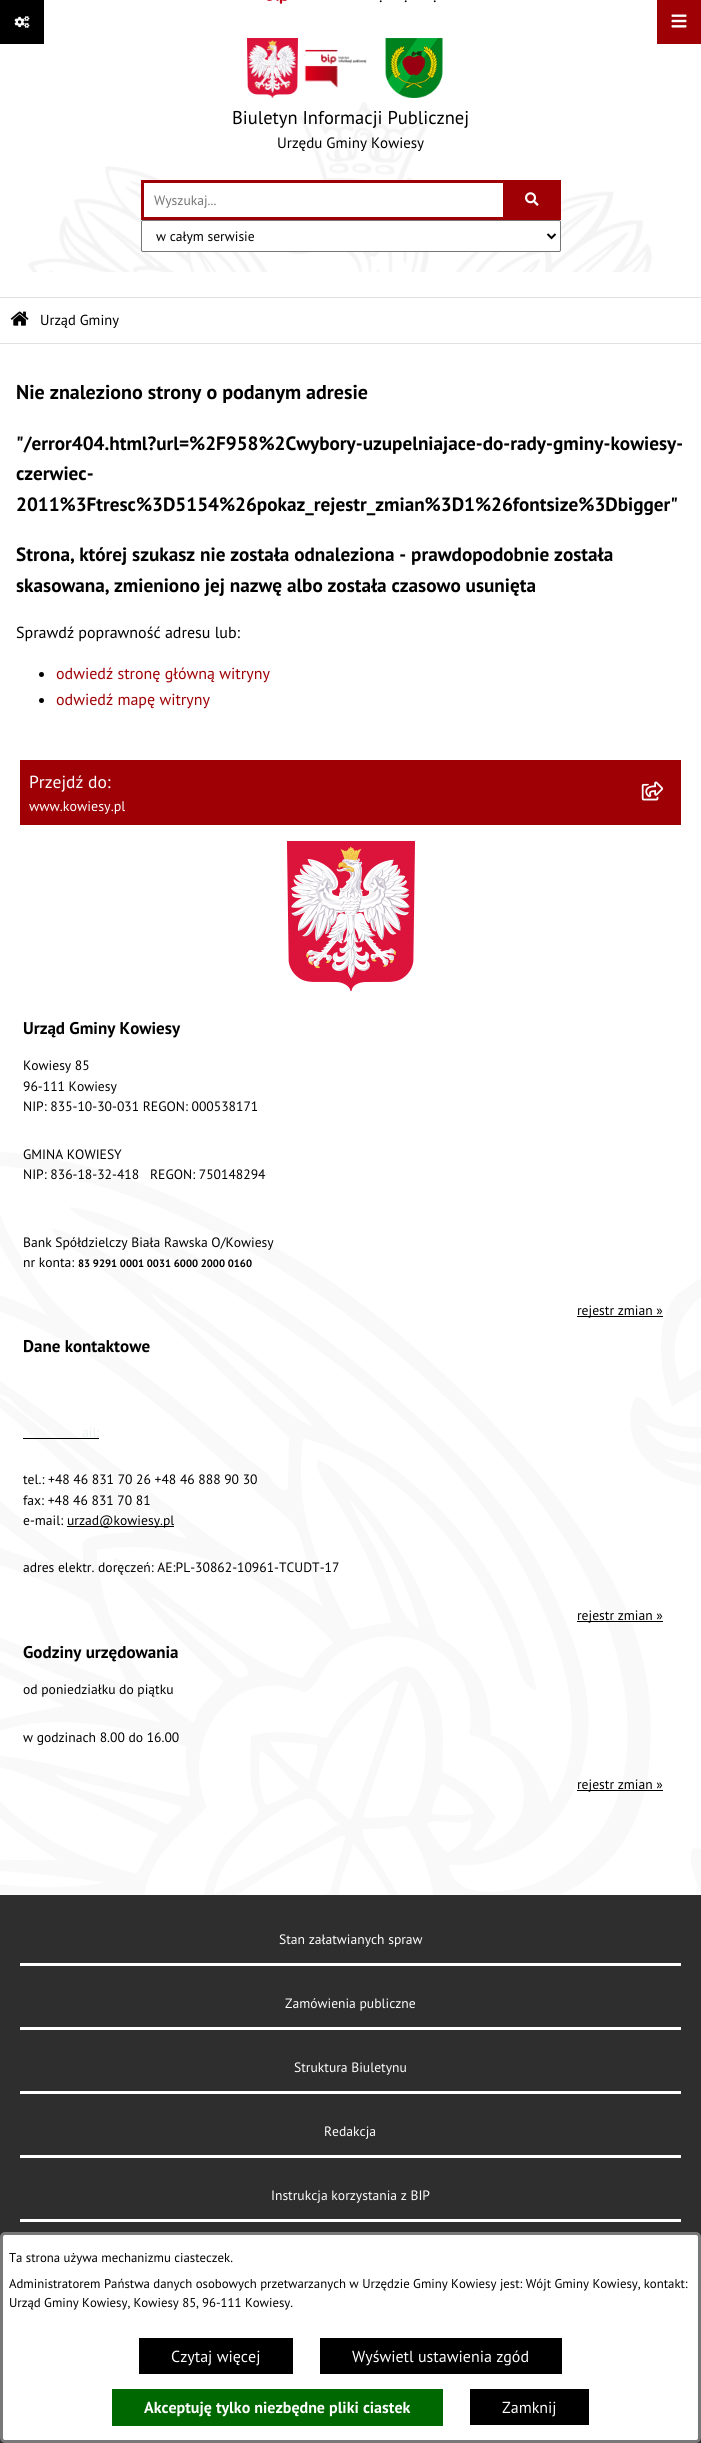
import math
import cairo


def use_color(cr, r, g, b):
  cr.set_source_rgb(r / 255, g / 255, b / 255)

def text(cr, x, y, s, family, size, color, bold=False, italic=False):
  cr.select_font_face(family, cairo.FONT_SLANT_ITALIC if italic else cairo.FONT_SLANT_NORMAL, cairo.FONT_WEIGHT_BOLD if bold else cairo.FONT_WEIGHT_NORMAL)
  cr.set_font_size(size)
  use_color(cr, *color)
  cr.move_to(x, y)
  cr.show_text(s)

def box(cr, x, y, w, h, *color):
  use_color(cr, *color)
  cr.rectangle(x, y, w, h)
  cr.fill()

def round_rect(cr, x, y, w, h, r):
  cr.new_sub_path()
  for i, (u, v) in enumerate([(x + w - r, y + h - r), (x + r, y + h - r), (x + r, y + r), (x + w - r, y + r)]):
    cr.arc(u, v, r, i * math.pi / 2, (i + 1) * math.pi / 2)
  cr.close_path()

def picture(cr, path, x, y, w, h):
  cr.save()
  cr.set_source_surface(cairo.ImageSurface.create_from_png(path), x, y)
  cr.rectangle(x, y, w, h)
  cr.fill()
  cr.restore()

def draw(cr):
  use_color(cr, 255, 255, 255)
  cr.paint()
  box(cr, 0, 297, 701, 1, 225, 225, 225)
  box(cr, 0, 0, 44, 44, 0, 0, 0)
  picture(cr, "img_01.png", 14, 16, 16, 12)
  picture(cr, "img_02.png", 28, 102, 624, 170)
  picture(cr, "img_03.png", 261, 0, 26, 4)
  picture(cr, "img_04.png", 247, 38, 51, 60)
  picture(cr, "img_05.png", 304, 49, 63, 39)
  picture(cr, "img_06.png", 385, 38, 58, 60)
  box(cr, 144, 183, 286, 34, 255, 255, 255)
  cr.rectangle(142.5, 181.5, 362, 37)
  use_color(cr, 158, 0, 5)
  cr.set_line_width(3)
  cr.stroke()
  box(cr, 506, 180, 55, 40, 158, 0, 5)
  picture(cr, "img_07.png", 525, 192, 14, 14)
  use_color(cr, 255, 255, 255)
  round_rect(cr, 141.5, 220.5, 419, 31, 1.5)
  cr.fill_preserve()
  use_color(cr, 118, 118, 118)
  cr.set_line_width(1)
  cr.stroke()
  cr.new_path()
  cr.move_to(547.5, 234)
  cr.line_to(551.5, 238)
  cr.line_to(555.5, 234)
  use_color(cr, 0, 0, 0)
  cr.set_line_width(2)
  cr.stroke()
  box(cr, 657, 0, 44, 44, 158, 0, 5)
  picture(cr, "img_08.png", 671, 14, 16, 14)
  box(cr, 0, 343, 701, 1, 225, 225, 225)
  picture(cr, "img_09.png", 10, 311, 19, 15)
  use_color(cr, 0, 0, 0)
  cr.arc(41.5, 674.5, 2.5, 0, 2 * math.pi)
  cr.fill()
  cr.arc(41.5, 700.5, 2.5, 0, 2 * math.pi)
  cr.fill()
  box(cr, 20, 760, 661, 65, 158, 0, 5)
  picture(cr, "img_10.png", 641, 781, 23, 20)
  picture(cr, "img_11.png", 0, 1152, 701, 743)
  picture(cr, "img_12.png", 287, 841, 128, 150)
  box(cr, 577, 1316, 86, 1, 0, 0, 0)
  box(cr, 23, 1438, 76, 1, 0, 0, 0)
  box(cr, 67, 1526, 107, 1, 0, 0, 0)
  box(cr, 577, 1621, 86, 1, 0, 0, 0)
  box(cr, 577, 1790, 86, 1, 0, 0, 0)
  box(cr, 0, 1895, 701, 548, 46, 46, 46)
  box(cr, 20, 1963, 661, 3, 255, 255, 255)
  box(cr, 20, 2027, 661, 3, 255, 255, 255)
  box(cr, 20, 2091, 661, 3, 255, 255, 255)
  box(cr, 20, 2155, 661, 3, 255, 255, 255)
  box(cr, 20, 2219, 661, 3, 255, 255, 255)
  round_rect(cr, 1.5, 2233.5, 698, 208, 3.5)
  cr.fill_preserve()
  use_color(cr, 120, 120, 120)
  cr.set_line_width(3)
  cr.stroke()
  box(cr, 139, 2338, 154, 36, 0, 0, 0)
  box(cr, 320, 2338, 242, 36, 0, 0, 0)
  box(cr, 112, 2389, 331, 37, 0, 104, 0)
  box(cr, 470, 2389, 119, 36, 0, 0, 0)
  text(cr, 379, 2, ".", "PT Sans", 16, (0, 0, 0))
  text(cr, 404, 2, ".", "PT Sans", 16, (0, 0, 0))
  text(cr, 433, 2, ".", "PT Sans", 16, (0, 0, 0))
  text(cr, 232, 124, "Biuletyn Informacji Publicznej", "PT Sans", 18.5, (0, 0, 0))
  text(cr, 277, 148, "Urzędu Gminy Kowiesy", "PT Sans", 15, (0, 0, 0))
  text(cr, 154, 205, "Wyszukaj...", "PT Sans", 13.6, (117, 117, 117))
  text(cr, 156, 241, "w całym serwisie", "PT Sans", 13.6, (0, 0, 0))
  text(cr, 40, 325, "Urząd Gminy", "PT Sans", 14.5, (0, 0, 0))
  text(cr, 16, 399, "Nie znaleziono strony o podanym adresie", "PT Sans", 20, (0, 0, 0), bold=True)
  text(cr, 16, 450, "\"/error404.html?url=%2F958%2Cwybory-uzupelniajace-do-rady-gminy-kowiesy-", "PT Sans", 19.2, (0, 0, 0), bold=True)
  text(cr, 16, 480, "czerwiec-", "PT Sans", 19.2, (0, 0, 0), bold=True)
  text(cr, 16, 511, "2011%3Ftresc%3D5154%26pokaz_rejestr_zmian%3D1%26fontsize%3Dbigger\"", "PT Sans", 19.2, (0, 0, 0), bold=True)
  text(cr, 16, 561, "Strona, której szukasz nie została odnaleziona - prawdopodobnie została", "PT Sans", 19.2, (0, 0, 0), bold=True)
  text(cr, 16, 592, "skasowana, zmieniono jej nazwę albo została czasowo usunięta", "PT Sans", 19.2, (0, 0, 0), bold=True)
  text(cr, 16, 638, "Sprawdź poprawność adresu lub:", "PT Sans", 16, (0, 0, 0))
  text(cr, 56, 679, "odwiedź stronę główną witryny", "PT Sans", 16, (158, 0, 5))
  text(cr, 56, 705, "odwiedź mapę witryny", "PT Sans", 16, (158, 0, 5))
  text(cr, 29, 788, "Przejdź do:", "PT Sans", 17.5, (255, 255, 255))
  text(cr, 29, 811, "www.kowiesy.pl", "PT Sans", 14, (255, 255, 255))
  text(cr, 23, 1034, "Urząd Gminy Kowiesy", "PT Sans", 17, (0, 0, 0), bold=True)
  text(cr, 23, 1070, "Kowiesy 85", "PT Sans", 13.6, (0, 0, 0))
  text(cr, 23, 1091, "96-111 Kowiesy", "PT Sans", 13.6, (0, 0, 0))
  text(cr, 23, 1111, "NIP: 835-10-30-031 REGON: 000538171", "PT Sans", 13.6, (0, 0, 0))
  text(cr, 23, 1159, "GMINA KOWIESY", "PT Sans", 13.6, (0, 0, 0))
  text(cr, 23, 1179, "NIP: 836-18-32-418   REGON: 750148294", "PT Sans", 13.6, (0, 0, 0))
  text(cr, 23, 1247, "Bank Spółdzielczy Biała Rawska O/Kowiesy", "PT Sans", 13.6, (0, 0, 0))
  text(cr, 23, 1267, "nr konta:", "PT Sans", 13.6, (0, 0, 0))
  text(cr, 78, 1267, "83 9291 0001 0031 6000 2000 0160", "PT Sans", 10.7, (0, 0, 0), bold=True)
  text(cr, 577, 1315, "rejestr zmian »", "PT Sans", 13.6, (0, 0, 0))
  text(cr, 23, 1352, "Dane kontaktowe", "PT Sans", 17, (0, 0, 0), bold=True)
  text(cr, 82, 1437, "ail:", "PT Sans", 13.6, (236, 240, 241))
  text(cr, 23, 1484, "tel.: +48 46 831 70 26 +48 46 888 90 30", "PT Sans", 13.6, (0, 0, 0))
  text(cr, 23, 1505, "fax: +48 46 831 70 81", "PT Sans", 13.6, (0, 0, 0))
  text(cr, 23, 1525, "e-mail:", "PT Sans", 13.6, (0, 0, 0))
  text(cr, 67, 1525, "urzad@kowiesy.pl", "PT Sans", 13.6, (0, 0, 0))
  text(cr, 23, 1572, "adres elektr. doręczeń: AE:PL-30862-10961-TCUDT-17", "PT Sans", 13.6, (0, 0, 0))
  text(cr, 577, 1620, "rejestr zmian »", "PT Sans", 13.6, (0, 0, 0))
  text(cr, 23, 1658, "Godziny urzędowania", "PT Sans", 17, (0, 0, 0), bold=True)
  text(cr, 23, 1694, "od poniedziałku do piątku", "PT Sans", 13.6, (0, 0, 0))
  text(cr, 23, 1742, "w godzinach 8.00 do 16.00", "PT Sans", 13.6, (0, 0, 0))
  text(cr, 577, 1789, "rejestr zmian »", "PT Sans", 13.6, (0, 0, 0))
  text(cr, 279, 1944, "Stan załatwianych spraw", "PT Sans", 13.6, (255, 255, 255))
  text(cr, 285, 2008, "Zamówienia publiczne", "PT Sans", 13.6, (255, 255, 255))
  text(cr, 294, 2072, "Struktura Biuletynu", "PT Sans", 13.6, (255, 255, 255))
  text(cr, 324, 2136, "Redakcja", "PT Sans", 13.6, (255, 255, 255))
  text(cr, 271, 2200, "Instrukcja korzystania z BIP", "PT Sans", 13.6, (255, 255, 255))
  text(cr, 9, 2262, "Ta strona używa mechanizmu ciasteczek.", "PT Sans", 12.8, (0, 0, 0))
  text(cr, 9, 2288, "Administratorem Państwa danych osobowych przetwarzanych w Urzędzie Gminy Kowiesy jest: Wójt Gminy Kowiesy, kontakt:", "PT Sans", 12.8, (0, 0, 0))
  text(cr, 9, 2307, "Urząd Gminy Kowiesy, Kowiesy 85, 96-111 Kowiesy.", "PT Sans", 12.8, (0, 0, 0))
  text(cr, 171, 2362, "Czytaj więcej", "PT Sans", 16, (255, 255, 255))
  text(cr, 352, 2362, "Wyświetl ustawienia zgód", "PT Sans", 16, (255, 255, 255))
  text(cr, 144, 2413, "Akceptuję tylko niezbędne pliki ciastek", "PT Sans", 16, (255, 255, 255), bold=True)
  text(cr, 502, 2413, "Zamknij", "PT Sans", 16, (255, 255, 255))


surface = cairo.ImageSurface(cairo.FORMAT_RGB24, 701, 2443)
cr = cairo.Context(surface)
options = cairo.FontOptions()
options.set_hint_metrics(cairo.HINT_METRICS_OFF)
options.set_hint_style(cairo.HINT_STYLE_NONE)
cr.set_font_options(options)
cr.set_miter_limit(4)
draw(cr)
surface.write_to_png("out.png")
